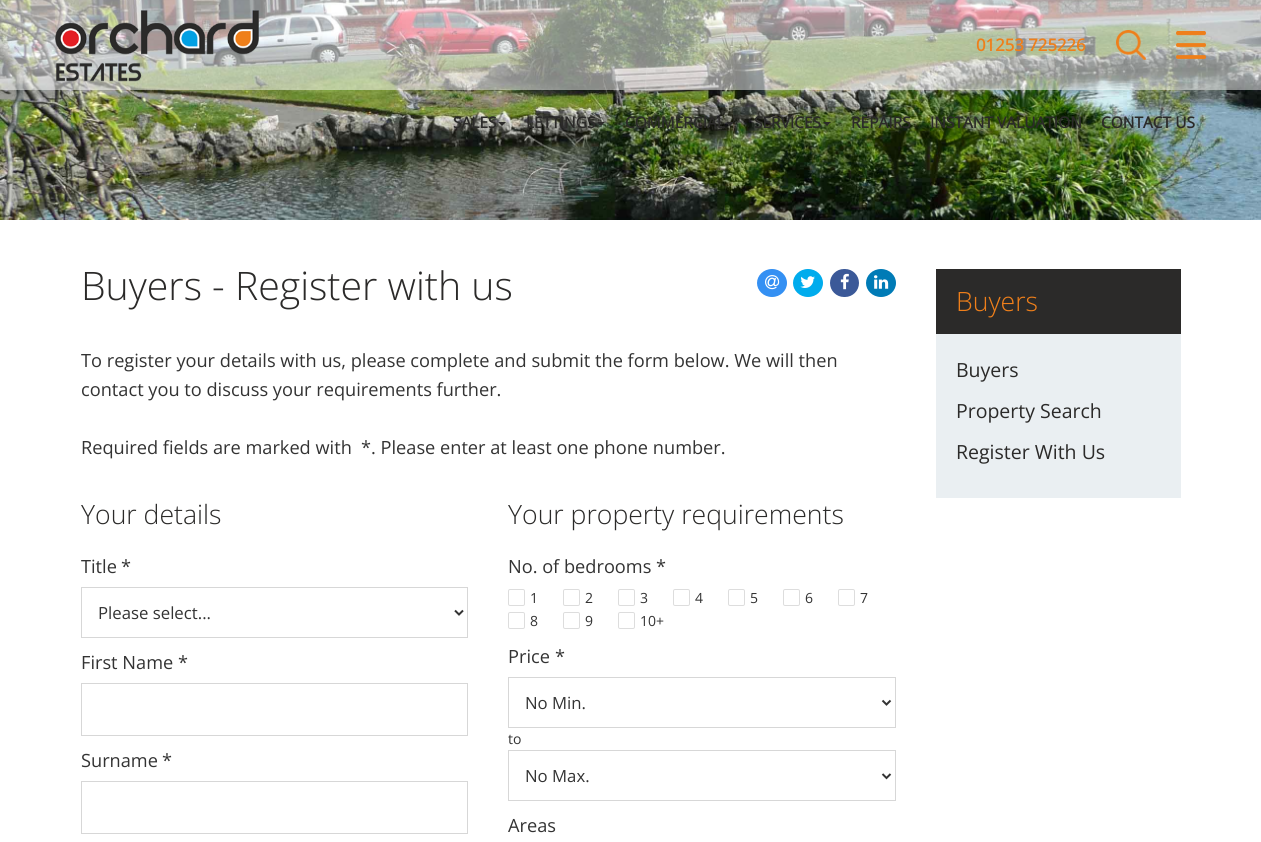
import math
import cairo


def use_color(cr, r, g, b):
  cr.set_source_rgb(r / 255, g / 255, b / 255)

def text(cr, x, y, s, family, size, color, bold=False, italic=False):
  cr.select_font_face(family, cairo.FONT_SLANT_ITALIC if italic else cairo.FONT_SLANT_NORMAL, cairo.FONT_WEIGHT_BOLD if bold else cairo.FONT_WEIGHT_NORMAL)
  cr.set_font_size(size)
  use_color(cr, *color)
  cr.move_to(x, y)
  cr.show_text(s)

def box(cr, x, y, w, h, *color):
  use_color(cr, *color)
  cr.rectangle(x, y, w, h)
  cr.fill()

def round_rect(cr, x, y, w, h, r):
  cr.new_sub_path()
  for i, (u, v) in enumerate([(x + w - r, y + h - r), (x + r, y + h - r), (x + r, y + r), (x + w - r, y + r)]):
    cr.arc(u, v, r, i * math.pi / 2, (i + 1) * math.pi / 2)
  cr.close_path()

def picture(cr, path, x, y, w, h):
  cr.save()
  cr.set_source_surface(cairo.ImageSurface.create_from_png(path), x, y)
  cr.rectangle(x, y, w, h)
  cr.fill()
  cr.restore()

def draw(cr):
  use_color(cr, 255, 255, 255)
  cr.paint()
  picture(cr, "img_03.png", 0, 0, 1261, 220)
  cr.set_source_rgba(1, 1, 1, 0.5)
  cr.rectangle(0, 0, 1261, 90)
  cr.fill()
  picture(cr, "img_01.png", 1116, 30, 30, 30)
  picture(cr, "img_02.png", 1176, 31, 30, 28)
  picture(cr, "img_04.png", 55, 10, 204, 72)
  use_color(cr, 43, 42, 41)
  cr.new_path()
  cr.move_to(498, 122)
  cr.line_to(506, 122)
  cr.line_to(502, 126)
  cr.close_path()
  cr.fill()
  cr.new_path()
  cr.move_to(597, 122)
  cr.line_to(605, 122)
  cr.line_to(601, 126)
  cr.close_path()
  cr.fill()
  cr.new_path()
  cr.move_to(726, 122)
  cr.line_to(734, 122)
  cr.line_to(730, 126)
  cr.close_path()
  cr.fill()
  cr.new_path()
  cr.move_to(823, 122)
  cr.line_to(831, 122)
  cr.line_to(827, 126)
  cr.close_path()
  cr.fill()
  use_color(cr, 52, 144, 243)
  cr.new_path()
  cr.move_to(772, 269)
  cr.curve_to(780.5, 269, 787, 275.5, 787, 283)
  cr.curve_to(787, 290.5, 780.5, 297, 772, 297)
  cr.curve_to(763.5, 297, 757, 290.5, 757, 283)
  cr.curve_to(757, 275.5, 763.5, 269, 772, 269)
  cr.close_path()
  cr.fill()
  picture(cr, "img_05.png", 765, 275, 15, 15)
  use_color(cr, 0, 172, 237)
  cr.new_path()
  cr.move_to(808, 269)
  cr.curve_to(816.5, 269, 823, 275.5, 823, 283)
  cr.curve_to(823, 290.5, 816.5, 297, 808, 297)
  cr.curve_to(799.5, 297, 793, 290.5, 793, 283)
  cr.curve_to(793, 275.5, 799.5, 269, 808, 269)
  cr.close_path()
  cr.fill()
  picture(cr, "img_06.png", 800, 276, 15, 12)
  use_color(cr, 59, 89, 152)
  round_rect(cr, 830, 269, 29, 28, 14)
  cr.fill()
  picture(cr, "img_07.png", 840, 273, 9, 17)
  use_color(cr, 0, 123, 182)
  cr.new_path()
  cr.move_to(881, 269)
  cr.curve_to(889.5, 269, 896, 275.5, 896, 283)
  cr.curve_to(896, 290.5, 889.5, 297, 881, 297)
  cr.curve_to(872.5, 297, 866, 290.5, 866, 283)
  cr.curve_to(866, 275.5, 872.5, 269, 881, 269)
  cr.close_path()
  cr.fill()
  picture(cr, "img_08.png", 874, 275, 15, 14)
  cr.rectangle(81.5, 587.5, 386, 50)
  use_color(cr, 215, 215, 215)
  cr.set_line_width(1)
  cr.stroke()
  cr.new_path()
  cr.move_to(455, 610.5)
  cr.line_to(459, 614.5)
  cr.line_to(463, 610.5)
  use_color(cr, 51, 51, 51)
  cr.set_line_width(2)
  cr.stroke()
  cr.rectangle(81.5, 683.5, 386, 52)
  use_color(cr, 215, 215, 215)
  cr.set_line_width(1)
  cr.stroke()
  cr.rectangle(81.5, 781.5, 386, 52)
  cr.stroke()
  round_rect(cr, 508.5, 589.5, 16, 16, 1.5)
  use_color(cr, 221, 221, 221)
  cr.stroke()
  round_rect(cr, 563.5, 589.5, 16, 16, 1.5)
  cr.stroke()
  round_rect(cr, 618.5, 589.5, 16, 16, 1.5)
  cr.stroke()
  round_rect(cr, 673.5, 589.5, 16, 16, 1.5)
  cr.stroke()
  round_rect(cr, 728.5, 589.5, 16, 16, 1.5)
  cr.stroke()
  round_rect(cr, 783.5, 589.5, 16, 16, 1.5)
  cr.stroke()
  round_rect(cr, 838.5, 589.5, 16, 16, 1.5)
  cr.stroke()
  round_rect(cr, 508.5, 612.5, 16, 16, 1.5)
  cr.stroke()
  round_rect(cr, 563.5, 612.5, 16, 16, 1.5)
  cr.stroke()
  round_rect(cr, 618.5, 612.5, 16, 16, 1.5)
  cr.stroke()
  cr.rectangle(508.5, 677.5, 387, 50)
  use_color(cr, 215, 215, 215)
  cr.stroke()
  cr.new_path()
  cr.move_to(882.5, 700.5)
  cr.line_to(886.5, 704.5)
  cr.line_to(890.5, 700.5)
  use_color(cr, 51, 51, 51)
  cr.set_line_width(2)
  cr.stroke()
  cr.rectangle(508.5, 750.5, 387, 50)
  use_color(cr, 215, 215, 215)
  cr.set_line_width(1)
  cr.stroke()
  cr.new_path()
  cr.move_to(882.5, 774)
  cr.line_to(886.5, 778)
  cr.line_to(890.5, 774)
  use_color(cr, 51, 51, 51)
  cr.set_line_width(2)
  cr.stroke()
  box(cr, 936, 334, 245, 164, 234, 239, 242)
  box(cr, 936, 269, 245, 65, 43, 42, 41)
  text(cr, 976, 51, "01253 725226", "Open Sans", 16.75, (239, 127, 26), bold=True)
  text(cr, 453, 128, "SALES", "Open Sans", 15.5, (43, 42, 41), bold=True)
  text(cr, 526, 128, "LETTINGS", "Open Sans", 15.5, (43, 42, 41), bold=True)
  text(cr, 625, 128, "COMMERCIAL", "Open Sans", 15.5, (43, 42, 41), bold=True)
  text(cr, 754, 128, "SERVICES", "Open Sans", 15.5, (43, 42, 41), bold=True)
  text(cr, 851, 128, "REPAIRS", "Open Sans", 15.5, (43, 42, 41), bold=True)
  text(cr, 930, 128, "INSTANT VALUATION", "Open Sans", 15.5, (43, 42, 41), bold=True)
  text(cr, 1101, 128, "CONTACT US", "Open Sans", 15.5, (43, 42, 41), bold=True)
  text(cr, 81, 300, "Buyers - Register with us", "Open Sans Light", 39.25, (43, 42, 41))
  text(cr, 81, 367, "To register your details with us, please complete and submit the form below. We will then", "Open Sans", 18.2, (51, 51, 51))
  text(cr, 81, 396, "contact you to discuss your requirements further.", "Open Sans", 18.2, (51, 51, 51))
  text(cr, 81, 454, "Required fields are marked with", "Open Sans", 18.2, (51, 51, 51))
  text(cr, 361, 454, "*", "Open Sans", 18.2, (51, 51, 51))
  text(cr, 371, 454, ". Please enter at least one phone number.", "Open Sans", 18.2, (51, 51, 51))
  text(cr, 81, 524, "Your details", "Open Sans Light", 26.6, (43, 42, 41))
  text(cr, 81, 573, "Title", "Open Sans", 18.2, (51, 51, 51))
  text(cr, 121, 573, "*", "Open Sans", 18.2, (51, 51, 51))
  text(cr, 98, 619, "Please select...", "Open Sans", 16.75, (51, 51, 51))
  text(cr, 81, 669, "First Name", "Open Sans", 18.2, (51, 51, 51))
  text(cr, 178, 669, "*", "Open Sans", 18.2, (51, 51, 51))
  text(cr, 81, 767, "Surname", "Open Sans", 18.2, (51, 51, 51))
  text(cr, 162, 767, "*", "Open Sans", 18.2, (51, 51, 51))
  text(cr, 508, 524, "Your property requirements", "Open Sans Light", 26.6, (43, 42, 41))
  text(cr, 508, 573, "No. of bedrooms", "Open Sans", 18.2, (51, 51, 51))
  text(cr, 656, 573, "*", "Open Sans", 18.2, (51, 51, 51))
  text(cr, 530, 603, "1", "Open Sans", 14, (51, 51, 51))
  text(cr, 585, 603, "2", "Open Sans", 14, (51, 51, 51))
  text(cr, 640, 603, "3", "Open Sans", 14, (51, 51, 51))
  text(cr, 695, 603, "4", "Open Sans", 14, (51, 51, 51))
  text(cr, 750, 603, "5", "Open Sans", 14, (51, 51, 51))
  text(cr, 805, 603, "6", "Open Sans", 14, (51, 51, 51))
  text(cr, 860, 603, "7", "Open Sans", 14, (51, 51, 51))
  text(cr, 530, 626, "8", "Open Sans", 14, (51, 51, 51))
  text(cr, 585, 626, "9", "Open Sans", 14, (51, 51, 51))
  text(cr, 640, 626, "10+", "Open Sans", 14, (51, 51, 51))
  text(cr, 508, 663, "Price", "Open Sans", 18.2, (51, 51, 51))
  text(cr, 555, 663, "*", "Open Sans", 18.2, (51, 51, 51))
  text(cr, 525, 709, "No Min.", "Open Sans", 16.75, (51, 51, 51))
  text(cr, 508, 744, "to", "Open Sans", 14, (51, 51, 51))
  text(cr, 525, 782, "No Max.", "Open Sans", 16.75, (51, 51, 51))
  text(cr, 508, 832, "Areas", "Open Sans", 18.2, (51, 51, 51))
  text(cr, 956, 311, "Buyers", "Open Sans Light", 26.6, (239, 127, 26))
  text(cr, 956, 377, "Buyers", "Open Sans", 19.5, (43, 42, 41))
  text(cr, 956, 418, "Property Search", "Open Sans", 19.5, (43, 42, 41))
  text(cr, 956, 459, "Register With Us", "Open Sans", 19.5, (43, 42, 41))


surface = cairo.ImageSurface(cairo.FORMAT_RGB24, 1261, 842)
cr = cairo.Context(surface)
options = cairo.FontOptions()
options.set_hint_metrics(cairo.HINT_METRICS_OFF)
options.set_hint_style(cairo.HINT_STYLE_NONE)
cr.set_font_options(options)
cr.set_miter_limit(4)
draw(cr)
surface.write_to_png("out.png")
